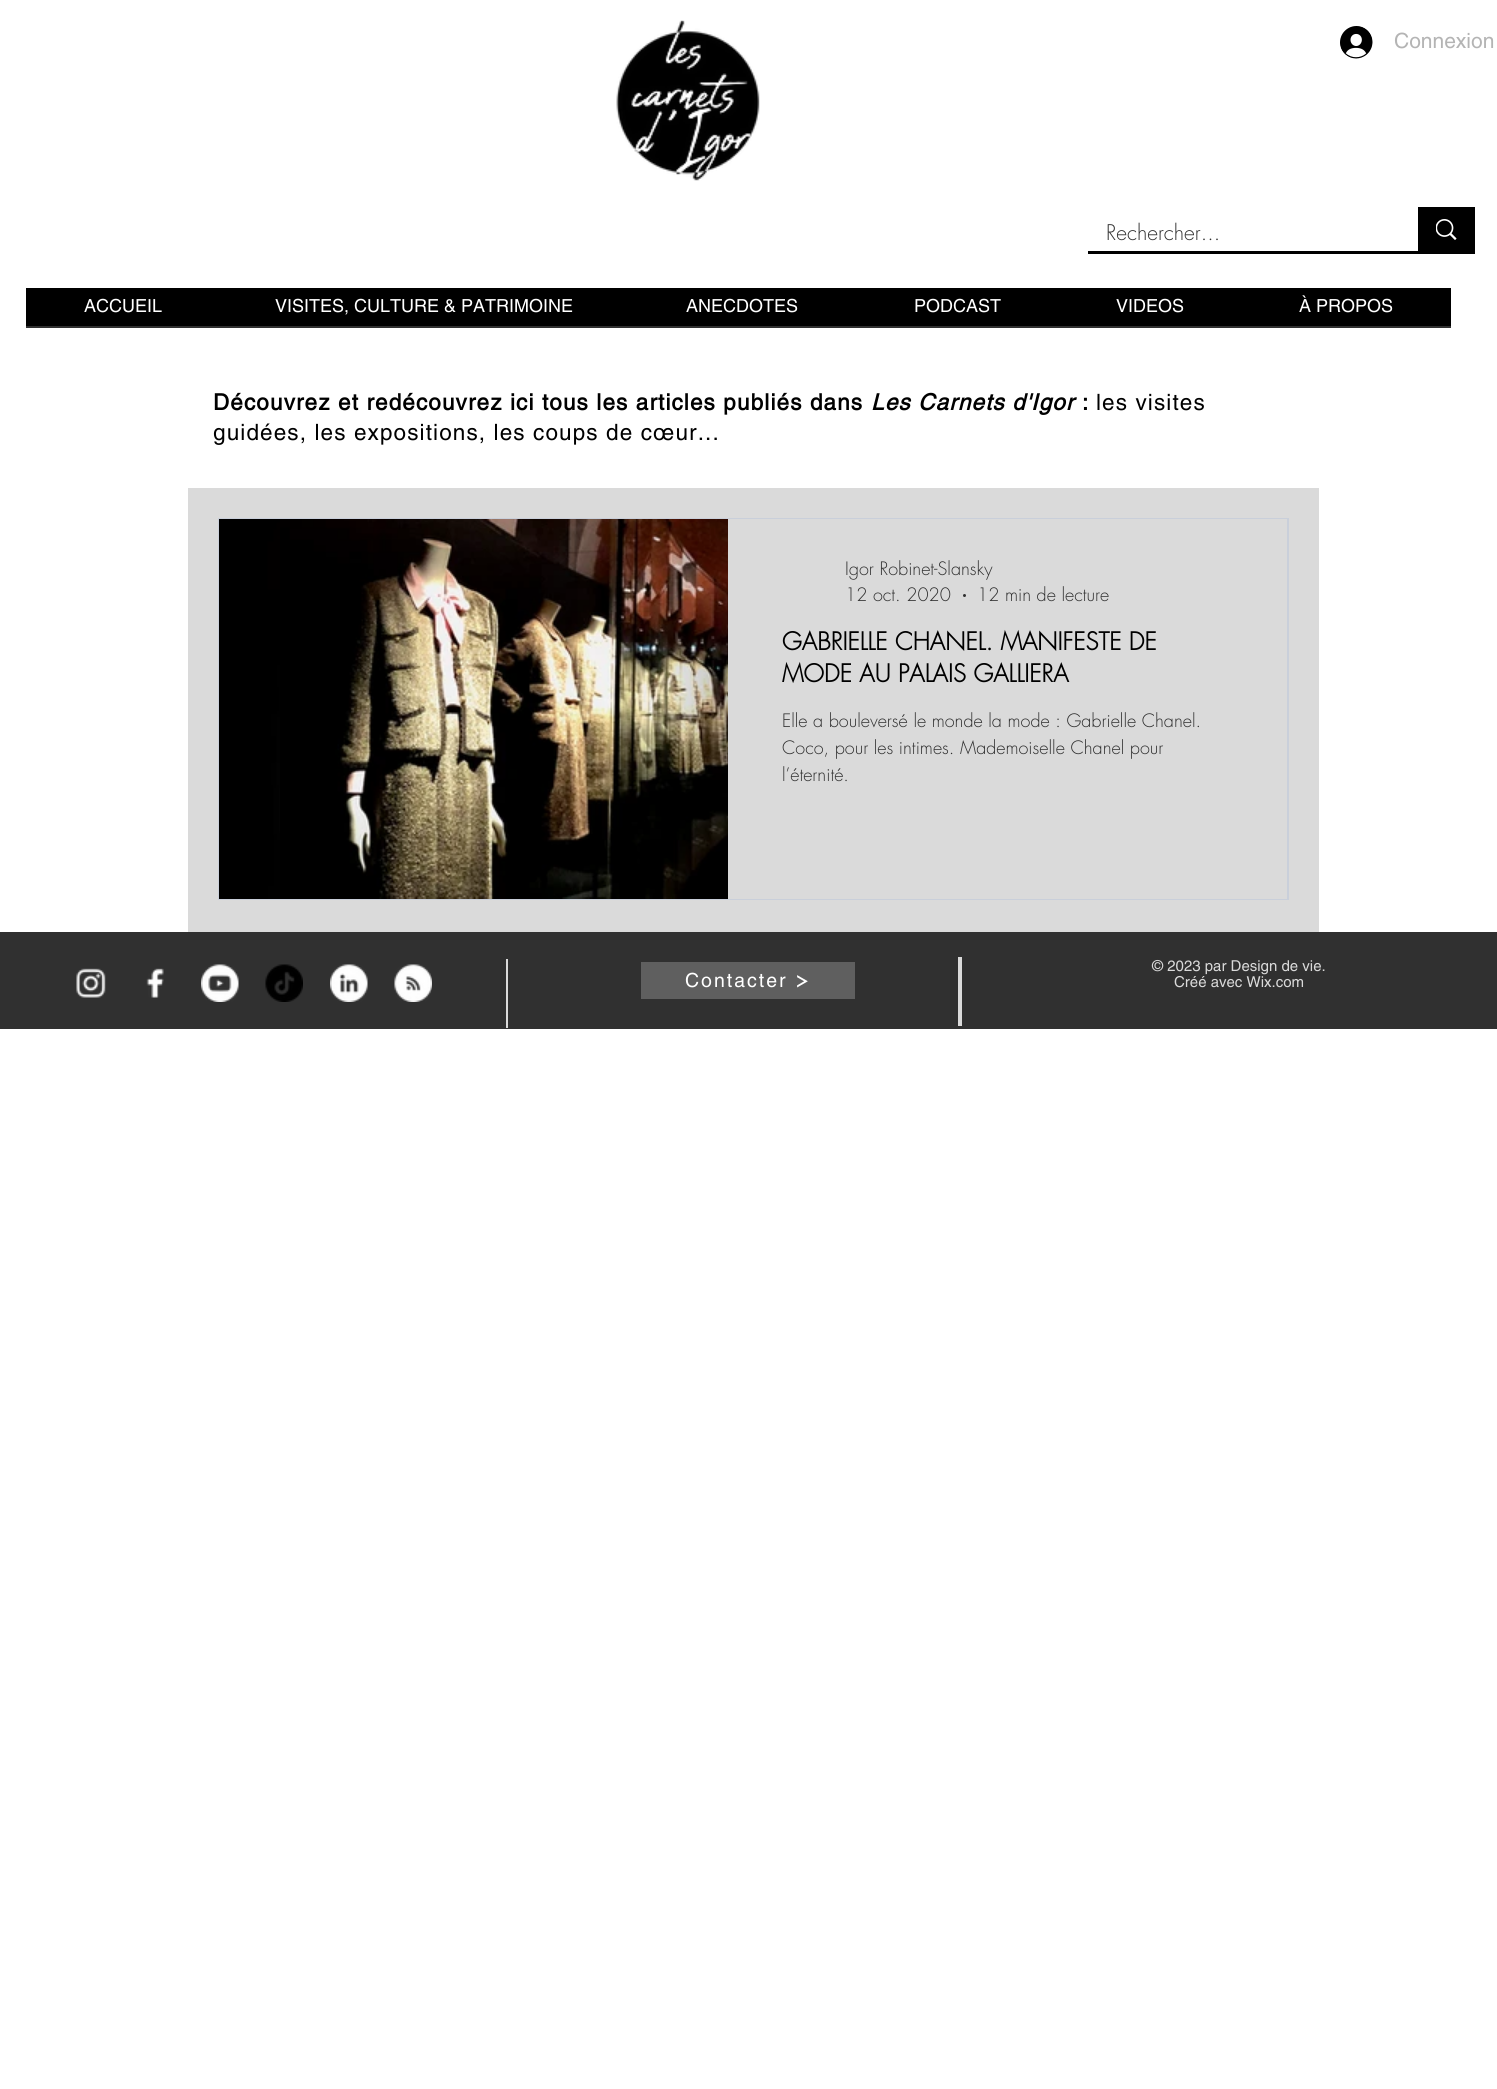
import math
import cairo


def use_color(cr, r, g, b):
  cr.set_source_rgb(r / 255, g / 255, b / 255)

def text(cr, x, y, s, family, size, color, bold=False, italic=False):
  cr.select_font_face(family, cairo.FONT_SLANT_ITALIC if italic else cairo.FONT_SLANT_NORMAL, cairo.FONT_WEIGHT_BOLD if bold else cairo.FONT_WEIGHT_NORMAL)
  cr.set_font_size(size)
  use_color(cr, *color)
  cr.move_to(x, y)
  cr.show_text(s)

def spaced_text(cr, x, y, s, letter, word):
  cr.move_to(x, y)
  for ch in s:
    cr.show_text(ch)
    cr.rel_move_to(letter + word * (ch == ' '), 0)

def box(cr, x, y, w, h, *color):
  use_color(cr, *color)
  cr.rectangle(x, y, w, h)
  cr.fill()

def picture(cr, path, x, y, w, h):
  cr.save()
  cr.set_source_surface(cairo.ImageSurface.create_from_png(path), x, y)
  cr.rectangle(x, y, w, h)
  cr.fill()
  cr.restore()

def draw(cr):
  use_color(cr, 255, 255, 255)
  cr.paint()
  picture(cr, "img_01.png", 616, 20, 144, 161)
  picture(cr, "img_02.png", 1340, 26, 33, 33)
  box(cr, 1088, 251, 387, 3, 0, 0, 0)
  box(cr, 1418, 207, 57, 44, 0, 0, 0)
  picture(cr, "img_03.png", 1436, 219, 21, 21)
  box(cr, 26, 288, 1425, 38, 0, 0, 0)
  box(cr, 26, 326, 1425, 2, 48, 48, 48)
  box(cr, 188, 488, 1131, 444, 218, 218, 218)
  cr.rectangle(219, 519, 1069, 380)
  use_color(cr, 201, 207, 218)
  cr.stroke()
  picture(cr, "img_04.png", 219, 519, 61, 380)
  picture(cr, "img_05.png", 280, 519, 448, 380)
  box(cr, 728, 519, 559, 380, 218, 218, 218)
  use_color(cr, 48, 48, 48)
  cr.arc(964.5, 595.5, 1.5, 0, 2 * math.pi)
  cr.fill()
  box(cr, 0, 932, 1497, 97, 48, 48, 48)
  picture(cr, "img_06.png", 76, 968, 30, 30)
  picture(cr, "img_07.png", 146, 968, 18, 30)
  picture(cr, "img_08.png", 201, 964, 38, 38)
  picture(cr, "img_09.png", 265, 964, 38, 38)
  picture(cr, "img_10.png", 330, 964, 38, 38)
  picture(cr, "img_11.png", 394, 964, 38, 38)
  box(cr, 506, 959, 2, 69, 218, 218, 218)
  box(cr, 641, 962, 214, 37, 95, 95, 95)
  picture(cr, "img_12.png", 797, 975, 11, 13)
  box(cr, 958, 957, 4, 69, 218, 218, 218)
  text(cr, 1394, 48, "Connexion", "helvetica", 21, (180, 180, 180))
  text(cr, 1106, 240, "Rechercher...", "futura Light", 21, (48, 48, 48))
  text(cr, 84, 312, "ACCUEIL", "helvetica", 18, (255, 255, 255))
  text(cr, 275, 312, "VISITES, CULTURE & PATRIMOINE", "helvetica", 18, (255, 255, 255))
  text(cr, 686, 312, "ANECDOTES", "helvetica", 18, (255, 255, 255))
  text(cr, 914, 312, "PODCAST", "helvetica", 18, (255, 255, 255))
  text(cr, 1116, 312, "VIDEOS", "helvetica", 18, (255, 255, 255))
  text(cr, 1299, 312, "À PROPOS", "helvetica", 18, (255, 255, 255))
  cr.select_font_face("helvetica", cairo.FONT_SLANT_NORMAL, cairo.FONT_WEIGHT_BOLD)
  cr.set_font_size(22.5)
  use_color(cr, 0, 0, 0)
  spaced_text(cr, 213, 410, "Découvrez et redécouvrez ici tous les articles publiés dans", 1.12, 0)
  cr.select_font_face("helvetica", cairo.FONT_SLANT_ITALIC, cairo.FONT_WEIGHT_BOLD)
  spaced_text(cr, 871, 410, "Les Carnets d'Igor", 1.12, 0)
  cr.select_font_face("helvetica", cairo.FONT_SLANT_NORMAL, cairo.FONT_WEIGHT_BOLD)
  spaced_text(cr, 1082, 410, ":", 1.12, 0)
  cr.select_font_face("helvetica")
  spaced_text(cr, 1096, 410, "les visites", 1.12, 0)
  spaced_text(cr, 213, 440, "guidées, les expositions, les coups de cœur...", 1.12, 0)
  text(cr, 845, 575, "Igor Robinet-Slansky", "futura Light", 18, (48, 48, 48))
  text(cr, 845, 601, "12 oct. 2020", "futura Light", 18, (48, 48, 48))
  text(cr, 977, 601, "12 min de lecture", "futura Light", 18, (48, 48, 48))
  text(cr, 782, 650, "GABRIELLE CHANEL. MANIFESTE DE", "futura", 24, (0, 0, 0), bold=True)
  text(cr, 782, 682, "MODE AU PALAIS GALLIERA", "futura", 24, (0, 0, 0), bold=True)
  text(cr, 782, 727, "Elle a bouleversé le monde la mode : Gabrielle Chanel.", "futura Light", 18, (48, 48, 48))
  text(cr, 782, 754, "Coco, pour les intimes. Mademoiselle Chanel pour", "futura Light", 18, (48, 48, 48))
  text(cr, 782, 781, "l’éternité.", "futura Light", 18, (48, 48, 48))
  cr.select_font_face("helvetica")
  cr.set_font_size(19.5)
  use_color(cr, 255, 255, 255)
  spaced_text(cr, 685, 987, "Contacter", 2, 0)
  text(cr, 1152, 971, "© 2023 par Design de vie.", "helvetica", 15, (218, 218, 218))
  text(cr, 1174, 987, "Créé avec Wix.com", "helvetica", 15, (218, 218, 218))


surface = cairo.ImageSurface(cairo.FORMAT_RGB24, 1497, 2089)
cr = cairo.Context(surface)
options = cairo.FontOptions()
options.set_hint_metrics(cairo.HINT_METRICS_OFF)
options.set_hint_style(cairo.HINT_STYLE_NONE)
cr.set_font_options(options)
cr.set_miter_limit(4)
draw(cr)
surface.write_to_png("out.png")
